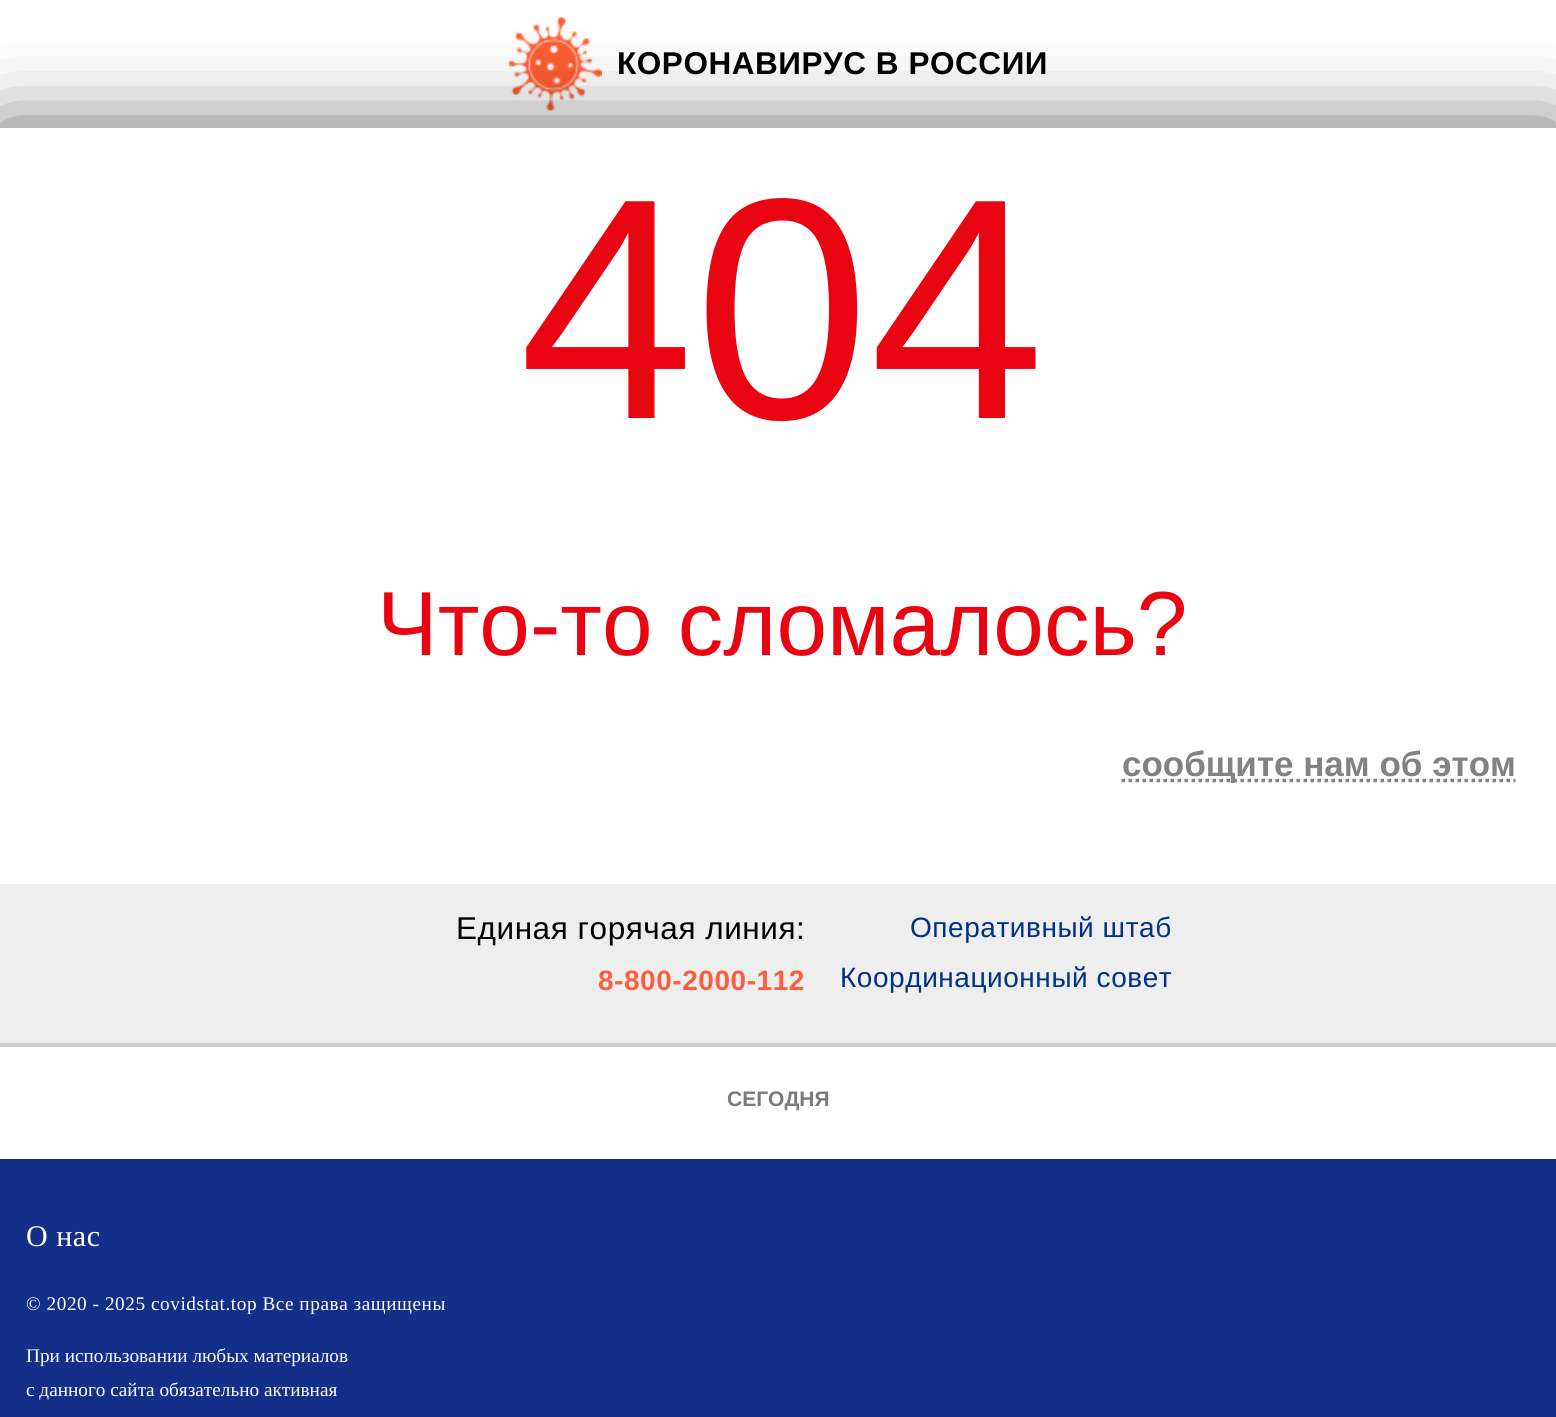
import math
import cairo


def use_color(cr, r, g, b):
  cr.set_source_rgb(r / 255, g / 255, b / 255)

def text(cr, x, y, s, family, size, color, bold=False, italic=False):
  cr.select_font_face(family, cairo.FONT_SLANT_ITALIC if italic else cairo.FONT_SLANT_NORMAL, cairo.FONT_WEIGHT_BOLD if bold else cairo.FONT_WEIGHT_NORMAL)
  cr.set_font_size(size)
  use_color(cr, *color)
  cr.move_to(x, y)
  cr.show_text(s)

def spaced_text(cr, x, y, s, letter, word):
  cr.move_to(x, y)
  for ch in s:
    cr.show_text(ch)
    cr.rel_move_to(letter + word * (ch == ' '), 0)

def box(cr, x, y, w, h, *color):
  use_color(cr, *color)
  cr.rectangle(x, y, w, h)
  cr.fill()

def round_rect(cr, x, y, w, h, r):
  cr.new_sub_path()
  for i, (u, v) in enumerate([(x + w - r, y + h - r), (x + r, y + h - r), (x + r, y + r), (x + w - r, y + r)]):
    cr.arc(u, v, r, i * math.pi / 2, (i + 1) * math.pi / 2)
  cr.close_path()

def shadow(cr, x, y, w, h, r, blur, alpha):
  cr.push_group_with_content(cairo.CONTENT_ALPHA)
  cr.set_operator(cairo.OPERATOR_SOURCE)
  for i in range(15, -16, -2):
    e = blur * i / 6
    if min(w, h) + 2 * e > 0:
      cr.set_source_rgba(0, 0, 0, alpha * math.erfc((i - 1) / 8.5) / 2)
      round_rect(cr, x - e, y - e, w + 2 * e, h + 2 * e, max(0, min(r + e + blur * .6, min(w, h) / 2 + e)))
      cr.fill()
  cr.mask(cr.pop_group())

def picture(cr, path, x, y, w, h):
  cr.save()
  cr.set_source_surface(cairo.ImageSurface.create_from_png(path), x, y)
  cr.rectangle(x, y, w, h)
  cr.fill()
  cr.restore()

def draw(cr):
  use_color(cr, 255, 255, 255)
  cr.paint()
  picture(cr, "img_01.png", 509, 17, 93, 94)
  use_color(cr, 0, 0, 0)
  shadow(cr, 0, 137, 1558, 756, 0, 44, 0.75)
  box(cr, 0, 128, 1556, 756, 255, 255, 255)
  cr.new_path()
  cr.move_to(1121.5, 780.5)
  cr.line_to(1515.5, 780.5)
  use_color(cr, 130, 130, 130)
  cr.set_line_width(3.5)
  cr.set_dash([3.5, 3.5])
  cr.stroke()
  box(cr, 0, 884, 1556, 159, 238, 238, 238)
  box(cr, 0, 1043, 1556, 4, 204, 204, 204)
  box(cr, 0, 1159, 1556, 258, 19, 47, 135)
  cr.select_font_face("Liberation Sans", cairo.FONT_SLANT_NORMAL, cairo.FONT_WEIGHT_BOLD)
  cr.set_font_size(31.5)
  use_color(cr, 0, 0, 0)
  spaced_text(cr, 617, 74, "КОРОНАВИРУС В РОССИИ", 0.55, 0)
  text(cr, 519, 418, "404", "Liberation Sans", 315, (233, 4, 18))
  text(cr, 377, 655, "Что-то сломалось?", "Liberation Sans", 91, (233, 4, 18))
  text(cr, 1122, 776, "сообщите нам об этом", "Liberation Sans", 35, (130, 130, 130), bold=True)
  cr.select_font_face("Liberation Sans")
  cr.set_font_size(31.5)
  use_color(cr, 0, 0, 0)
  spaced_text(cr, 456, 939, "Единая горячая линия:", 0.55, 0)
  cr.select_font_face("Liberation Sans", cairo.FONT_SLANT_NORMAL, cairo.FONT_WEIGHT_BOLD)
  cr.set_font_size(28)
  use_color(cr, 251, 95, 61)
  spaced_text(cr, 598, 990, "8-800-2000-112", 0.55, 0)
  cr.select_font_face("Liberation Sans")
  use_color(cr, 0, 49, 136)
  spaced_text(cr, 910, 937, "Оперативный штаб", 0.55, 0)
  spaced_text(cr, 840, 987, "Координационный совет", 0.55, 0)
  text(cr, 727, 1106, "СЕГОДНЯ", "Liberation Sans", 21, (122, 122, 122), bold=True)
  cr.select_font_face("Liberation Serif")
  cr.set_font_size(30)
  use_color(cr, 255, 255, 255)
  spaced_text(cr, 26, 1246, "О нас", 0.55, 0)
  cr.set_font_size(19.25)
  spaced_text(cr, 26, 1310, "© 2020 - 2025 covidstat.top Все права защищены", 0.55, 0)
  text(cr, 26, 1362, "При использовании любых материалов", "Liberation Serif", 19.25, (255, 255, 255))
  text(cr, 26, 1396, "с данного сайта обязательно активная", "Liberation Serif", 19.25, (255, 255, 255))


surface = cairo.ImageSurface(cairo.FORMAT_RGB24, 1556, 1417)
cr = cairo.Context(surface)
options = cairo.FontOptions()
options.set_hint_metrics(cairo.HINT_METRICS_OFF)
options.set_hint_style(cairo.HINT_STYLE_NONE)
cr.set_font_options(options)
cr.set_miter_limit(4)
draw(cr)
surface.write_to_png("out.png")
